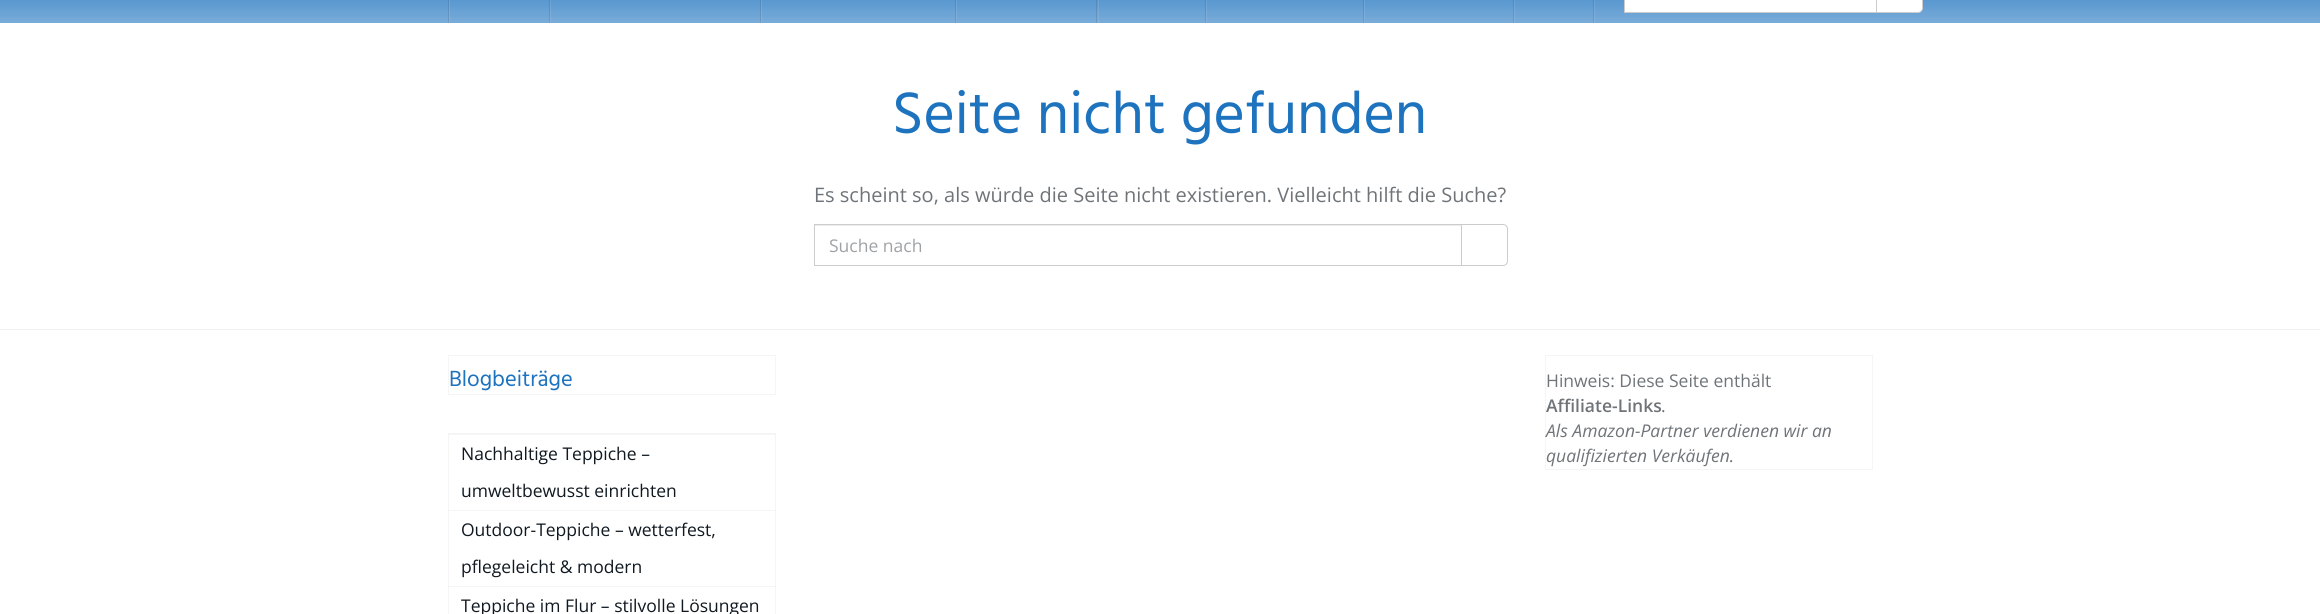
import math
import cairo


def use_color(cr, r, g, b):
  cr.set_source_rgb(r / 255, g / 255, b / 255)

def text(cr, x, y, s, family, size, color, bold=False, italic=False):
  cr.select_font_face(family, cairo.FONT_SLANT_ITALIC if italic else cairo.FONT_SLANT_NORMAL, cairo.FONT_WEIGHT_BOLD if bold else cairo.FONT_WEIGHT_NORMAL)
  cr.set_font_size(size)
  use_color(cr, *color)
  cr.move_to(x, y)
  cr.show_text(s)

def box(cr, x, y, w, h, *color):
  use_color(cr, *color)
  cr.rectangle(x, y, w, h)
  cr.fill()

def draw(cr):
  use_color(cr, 255, 255, 255)
  cr.paint()
  gradient = cairo.LinearGradient(1160, -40, 1160, 23)
  gradient.add_color_stop_rgba(0, 0.118, 0.451, 0.745, 1)
  gradient.add_color_stop_rgba(1, 0.478, 0.675, 0.851, 1)
  cr.set_source(gradient)
  cr.rectangle(0, 0, 2320, 23)
  cr.fill()
  gradient = cairo.LinearGradient(1160, -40, 1160, 23)
  gradient.add_color_stop_rgba(0, 0.208, 0.506, 0.773, 1)
  gradient.add_color_stop_rgba(1, 0.529, 0.706, 0.867, 1)
  cr.set_source(gradient)
  cr.rectangle(1514, 0, 1, 23)
  cr.fill()
  gradient = cairo.LinearGradient(1160, -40, 1160, 23)
  gradient.add_color_stop_rgba(0, 0.106, 0.408, 0.671, 1)
  gradient.add_color_stop_rgba(1, 0.431, 0.608, 0.765, 1)
  cr.set_source(gradient)
  cr.rectangle(1593, 0, 1, 23)
  cr.fill()
  gradient = cairo.LinearGradient(1160, -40, 1160, 23)
  gradient.add_color_stop_rgba(0, 0.208, 0.506, 0.773, 1)
  gradient.add_color_stop_rgba(1, 0.529, 0.706, 0.867, 1)
  cr.set_source(gradient)
  cr.rectangle(1364, 0, 1, 23)
  cr.fill()
  gradient = cairo.LinearGradient(1160, -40, 1160, 23)
  gradient.add_color_stop_rgba(0, 0.106, 0.408, 0.671, 1)
  gradient.add_color_stop_rgba(1, 0.431, 0.608, 0.765, 1)
  cr.set_source(gradient)
  cr.rectangle(1513, 0, 1, 23)
  cr.fill()
  gradient = cairo.LinearGradient(1160, -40, 1160, 23)
  gradient.add_color_stop_rgba(0, 0.208, 0.506, 0.773, 1)
  gradient.add_color_stop_rgba(1, 0.529, 0.706, 0.867, 1)
  cr.set_source(gradient)
  cr.rectangle(1206, 0, 1, 23)
  cr.fill()
  gradient = cairo.LinearGradient(1160, -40, 1160, 23)
  gradient.add_color_stop_rgba(0, 0.106, 0.408, 0.671, 1)
  gradient.add_color_stop_rgba(1, 0.431, 0.608, 0.765, 1)
  cr.set_source(gradient)
  cr.rectangle(1363, 0, 1, 23)
  cr.fill()
  gradient = cairo.LinearGradient(1160, -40, 1160, 23)
  gradient.add_color_stop_rgba(0, 0.208, 0.506, 0.773, 1)
  gradient.add_color_stop_rgba(1, 0.529, 0.706, 0.867, 1)
  cr.set_source(gradient)
  cr.rectangle(1098, 0, 1, 23)
  cr.fill()
  gradient = cairo.LinearGradient(1160, -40, 1160, 23)
  gradient.add_color_stop_rgba(0, 0.106, 0.408, 0.671, 1)
  gradient.add_color_stop_rgba(1, 0.431, 0.608, 0.765, 1)
  cr.set_source(gradient)
  cr.rectangle(1205, 0, 1, 23)
  cr.fill()
  gradient = cairo.LinearGradient(1160, -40, 1160, 23)
  gradient.add_color_stop_rgba(0, 0.208, 0.506, 0.773, 1)
  gradient.add_color_stop_rgba(1, 0.529, 0.706, 0.867, 1)
  cr.set_source(gradient)
  cr.rectangle(956, 0, 1, 23)
  cr.fill()
  gradient = cairo.LinearGradient(1160, -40, 1160, 23)
  gradient.add_color_stop_rgba(0, 0.106, 0.408, 0.671, 1)
  gradient.add_color_stop_rgba(1, 0.431, 0.608, 0.765, 1)
  cr.set_source(gradient)
  cr.rectangle(1096, 0, 1, 23)
  cr.fill()
  gradient = cairo.LinearGradient(1160, -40, 1160, 23)
  gradient.add_color_stop_rgba(0, 0.208, 0.506, 0.773, 1)
  gradient.add_color_stop_rgba(1, 0.529, 0.706, 0.867, 1)
  cr.set_source(gradient)
  cr.rectangle(761, 0, 1, 23)
  cr.fill()
  gradient = cairo.LinearGradient(1160, -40, 1160, 23)
  gradient.add_color_stop_rgba(0, 0.106, 0.408, 0.671, 1)
  gradient.add_color_stop_rgba(1, 0.431, 0.608, 0.765, 1)
  cr.set_source(gradient)
  cr.rectangle(955, 0, 1, 23)
  cr.fill()
  gradient = cairo.LinearGradient(1160, -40, 1160, 23)
  gradient.add_color_stop_rgba(0, 0.208, 0.506, 0.773, 1)
  gradient.add_color_stop_rgba(1, 0.529, 0.706, 0.867, 1)
  cr.set_source(gradient)
  cr.rectangle(550, 0, 1, 23)
  cr.fill()
  gradient = cairo.LinearGradient(1160, -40, 1160, 23)
  gradient.add_color_stop_rgba(0, 0.106, 0.408, 0.671, 1)
  gradient.add_color_stop_rgba(1, 0.431, 0.608, 0.765, 1)
  cr.set_source(gradient)
  cr.rectangle(760, 0, 1, 23)
  cr.fill()
  gradient = cairo.LinearGradient(1160, -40, 1160, 23)
  gradient.add_color_stop_rgba(0, 0.208, 0.506, 0.773, 1)
  gradient.add_color_stop_rgba(1, 0.529, 0.706, 0.867, 1)
  cr.set_source(gradient)
  cr.rectangle(449, 0, 1, 23)
  cr.fill()
  gradient = cairo.LinearGradient(1160, -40, 1160, 23)
  gradient.add_color_stop_rgba(0, 0.106, 0.408, 0.671, 1)
  gradient.add_color_stop_rgba(1, 0.431, 0.608, 0.765, 1)
  cr.set_source(gradient)
  cr.rectangle(549, 0, 1, 23)
  cr.fill()
  cr.rectangle(448, 0, 1, 23)
  cr.fill()
  gradient = cairo.LinearGradient(1160, -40, 1160, 23)
  gradient.add_color_stop_rgba(0, 0.208, 0.506, 0.773, 1)
  gradient.add_color_stop_rgba(1, 0.529, 0.706, 0.867, 1)
  cr.set_source(gradient)
  cr.rectangle(1594, 0, 1, 23)
  cr.fill()
  box(cr, 1625, 0, 251, 12, 255, 255, 255)
  cr.rectangle(1624.5, -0.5, 253, 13)
  use_color(cr, 204, 204, 204)
  cr.set_line_width(1)
  cr.stroke()
  use_color(cr, 255, 255, 255)
  cr.new_path()
  cr.move_to(1876.5, -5.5)
  cr.line_to(1918, -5.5)
  cr.curve_to(1920.5, -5.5, 1922.5, -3.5, 1922.5, -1)
  cr.line_to(1922.5, 8)
  cr.curve_to(1922.5, 10.5, 1920.5, 12.5, 1918, 12.5)
  cr.line_to(1876.5, 12.5)
  cr.close_path()
  cr.fill_preserve()
  use_color(cr, 204, 204, 204)
  cr.stroke()
  box(cr, 815, 225, 646, 1, 236, 236, 236)
  cr.rectangle(814.5, 224.5, 648, 41)
  use_color(cr, 204, 204, 204)
  cr.stroke()
  use_color(cr, 255, 255, 255)
  cr.new_path()
  cr.move_to(1461.5, 224.5)
  cr.line_to(1503, 224.5)
  cr.curve_to(1505.5, 224.5, 1507.5, 226.5, 1507.5, 229)
  cr.line_to(1507.5, 261)
  cr.curve_to(1507.5, 263.5, 1505.5, 265.5, 1503, 265.5)
  cr.line_to(1461.5, 265.5)
  cr.close_path()
  cr.fill_preserve()
  use_color(cr, 204, 204, 204)
  cr.stroke()
  box(cr, 0, 329, 2320, 1, 240, 240, 240)
  cr.rectangle(448.5, 355.5, 327, 39)
  use_color(cr, 245, 245, 245)
  cr.stroke()
  cr.rectangle(448.5, 433.5, 327, 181)
  cr.stroke()
  box(cr, 449, 434, 326, 1, 245, 245, 245)
  box(cr, 449, 510, 326, 1, 245, 245, 245)
  box(cr, 449, 586, 326, 1, 245, 245, 245)
  cr.rectangle(1545.5, 355.5, 327, 114)
  cr.stroke()
  text(cr, 892, 133, "Seite nicht gefunden", "Hind", 60, (30, 115, 190))
  text(cr, 814, 202, "Es scheint so, als würde die Seite nicht existieren. Vielleicht hilft die Suche?", "Open Sans", 20, (111, 116, 121))
  text(cr, 829, 252, "Suche nach", "Open Sans", 17.5, (159, 162, 165))
  text(cr, 449, 386, "Blogbeiträge", "Hind", 22.5, (30, 115, 190))
  text(cr, 461, 460, "Nachhaltige Teppiche –", "Open Sans", 17.5, (16, 24, 32))
  text(cr, 461, 497, "umweltbewusst einrichten", "Open Sans", 17.5, (16, 24, 32))
  text(cr, 461, 536, "Outdoor-Teppiche – wetterfest,", "Open Sans", 17.5, (16, 24, 32))
  text(cr, 461, 573, "pflegeleicht & modern", "Open Sans", 17.5, (16, 24, 32))
  text(cr, 461, 612, "Teppiche im Flur – stilvolle Lösungen", "Open Sans", 17.5, (16, 24, 32))
  text(cr, 1546, 387, "Hinweis: Diese Seite enthält", "Open Sans", 17.5, (111, 116, 121))
  text(cr, 1546, 412, "Affiliate-Links", "Open Sans SemiBold", 17.5, (111, 116, 121))
  text(cr, 1661, 412, ".", "Open Sans", 17.5, (111, 116, 121))
  text(cr, 1546, 437, "Als Amazon-Partner verdienen wir an", "Open Sans", 17.5, (111, 116, 121), italic=True)
  text(cr, 1546, 462, "qualifizierten Verkäufen.", "Open Sans", 17.5, (111, 116, 121), italic=True)


surface = cairo.ImageSurface(cairo.FORMAT_RGB24, 2320, 614)
cr = cairo.Context(surface)
options = cairo.FontOptions()
options.set_hint_metrics(cairo.HINT_METRICS_OFF)
options.set_hint_style(cairo.HINT_STYLE_NONE)
cr.set_font_options(options)
cr.set_miter_limit(4)
draw(cr)
surface.write_to_png("out.png")
